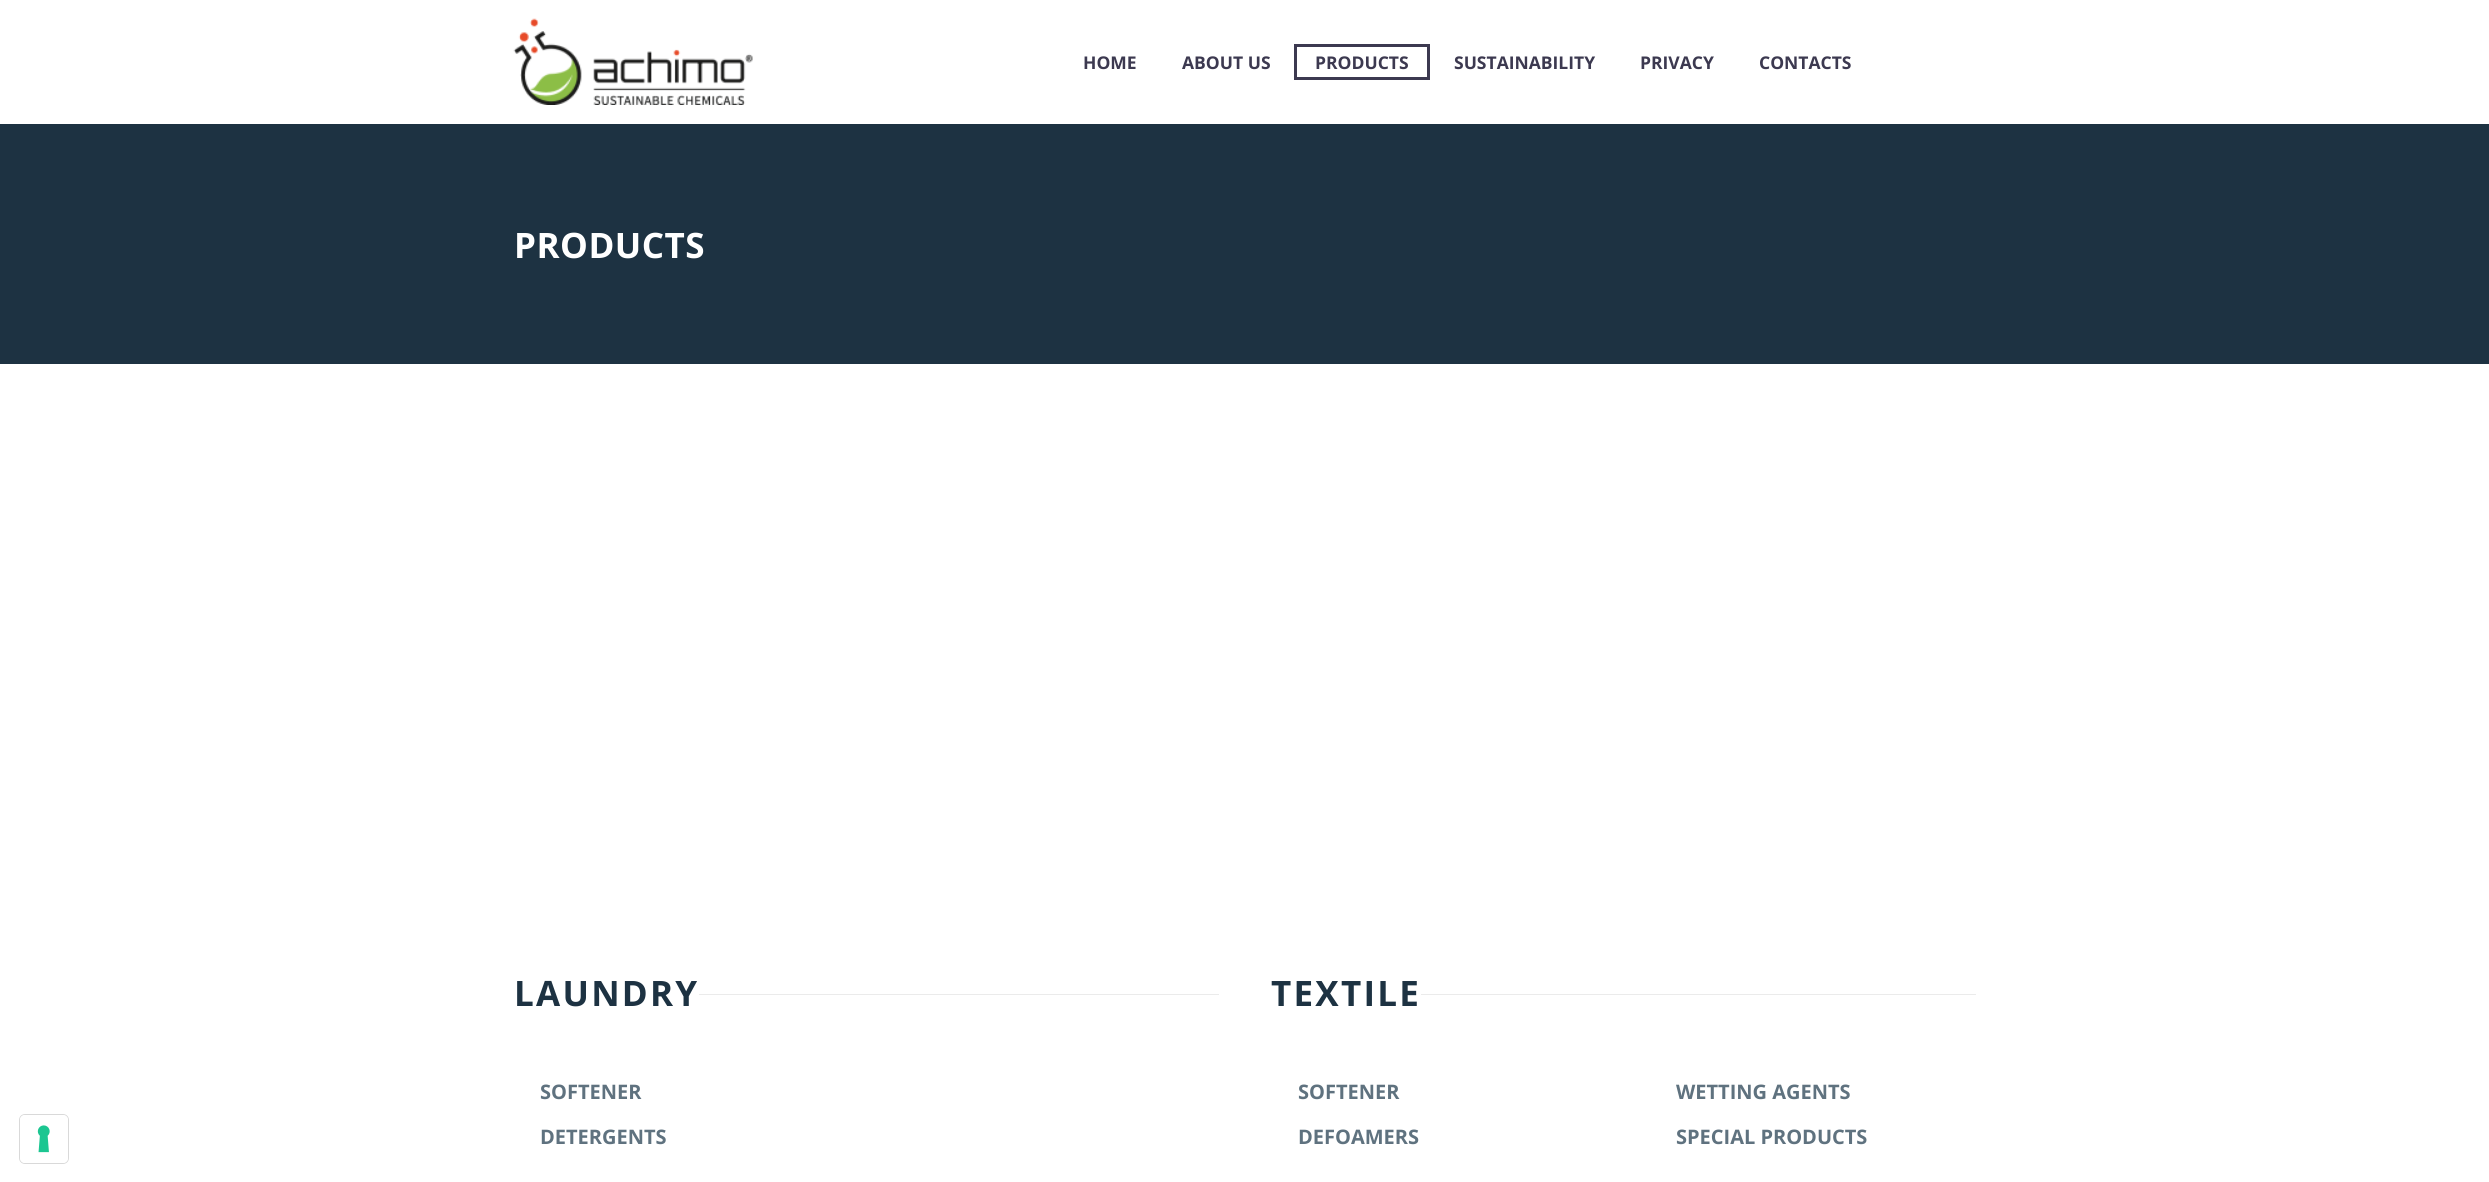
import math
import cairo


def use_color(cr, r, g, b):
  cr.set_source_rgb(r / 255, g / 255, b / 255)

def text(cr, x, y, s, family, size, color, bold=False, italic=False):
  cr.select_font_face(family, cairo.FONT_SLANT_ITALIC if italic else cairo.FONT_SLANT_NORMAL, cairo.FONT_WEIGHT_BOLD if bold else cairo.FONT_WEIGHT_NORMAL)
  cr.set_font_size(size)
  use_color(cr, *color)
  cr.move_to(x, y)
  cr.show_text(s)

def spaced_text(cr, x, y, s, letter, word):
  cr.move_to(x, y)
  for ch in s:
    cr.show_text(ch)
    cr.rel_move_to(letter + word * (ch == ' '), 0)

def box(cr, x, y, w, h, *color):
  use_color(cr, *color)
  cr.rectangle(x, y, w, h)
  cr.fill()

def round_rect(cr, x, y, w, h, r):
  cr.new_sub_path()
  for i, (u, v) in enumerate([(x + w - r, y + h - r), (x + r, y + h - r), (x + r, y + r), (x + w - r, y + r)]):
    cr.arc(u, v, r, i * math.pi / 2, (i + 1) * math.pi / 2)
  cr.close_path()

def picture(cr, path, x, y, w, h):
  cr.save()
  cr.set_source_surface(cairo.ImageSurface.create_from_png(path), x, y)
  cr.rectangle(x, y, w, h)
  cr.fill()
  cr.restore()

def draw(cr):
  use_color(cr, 255, 255, 255)
  cr.paint()
  round_rect(cr, 19.5, 1114.5, 49, 49, 5.5)
  use_color(cr, 217, 217, 217)
  cr.set_line_width(1)
  cr.stroke()
  use_color(cr, 255, 255, 255)
  round_rect(cr, 20, 1115, 48, 48, 5)
  cr.fill()
  picture(cr, "img_01.png", 37, 1125, 13, 28)
  picture(cr, "img_02.png", 513, 18, 240, 87)
  cr.rectangle(1295.5, 45.5, 133, 33)
  use_color(cr, 60, 57, 80)
  cr.set_line_width(3)
  cr.stroke()
  box(cr, 0, 124, 2489, 240, 29, 50, 66)
  box(cr, 699, 994, 520, 1, 235, 235, 235)
  box(cr, 1421, 994, 555, 1, 235, 235, 235)
  text(cr, 1083, 69, "HOME", "Open Sans", 17.5, (60, 57, 80), bold=True)
  text(cr, 1182, 69, "ABOUT US", "Open Sans", 17.5, (60, 57, 80), bold=True)
  text(cr, 1315, 69, "PRODUCTS", "Open Sans", 17.5, (60, 57, 80), bold=True)
  text(cr, 1454, 69, "SUSTAINABILITY", "Open Sans", 17.5, (60, 57, 80), bold=True)
  text(cr, 1640, 69, "PRIVACY", "Open Sans", 17.5, (60, 57, 80), bold=True)
  text(cr, 1759, 69, "CONTACTS", "Open Sans", 17.5, (60, 57, 80), bold=True)
  cr.set_font_size(35)
  use_color(cr, 255, 255, 255)
  spaced_text(cr, 514, 258, "PRODUCTS", 0.5, 0)
  use_color(cr, 29, 50, 66)
  spaced_text(cr, 514, 1006, "LAUNDRY", 2.25, 0)
  text(cr, 540, 1099, "SOFTENER", "Open Sans", 20, (95, 114, 127), bold=True)
  text(cr, 540, 1144, "DETERGENTS", "Open Sans", 20, (95, 114, 127), bold=True)
  cr.set_font_size(35)
  use_color(cr, 29, 50, 66)
  spaced_text(cr, 1271, 1006, "TEXTILE", 2.25, 0)
  text(cr, 1298, 1099, "SOFTENER", "Open Sans", 20, (95, 114, 127), bold=True)
  text(cr, 1298, 1144, "DEFOAMERS", "Open Sans", 20, (95, 114, 127), bold=True)
  text(cr, 1676, 1099, "WETTING AGENTS", "Open Sans", 20, (95, 114, 127), bold=True)
  text(cr, 1676, 1144, "SPECIAL PRODUCTS", "Open Sans", 20, (95, 114, 127), bold=True)


surface = cairo.ImageSurface(cairo.FORMAT_RGB24, 2489, 1182)
cr = cairo.Context(surface)
options = cairo.FontOptions()
options.set_hint_metrics(cairo.HINT_METRICS_OFF)
options.set_hint_style(cairo.HINT_STYLE_NONE)
cr.set_font_options(options)
cr.set_miter_limit(4)
draw(cr)
surface.write_to_png("out.png")
